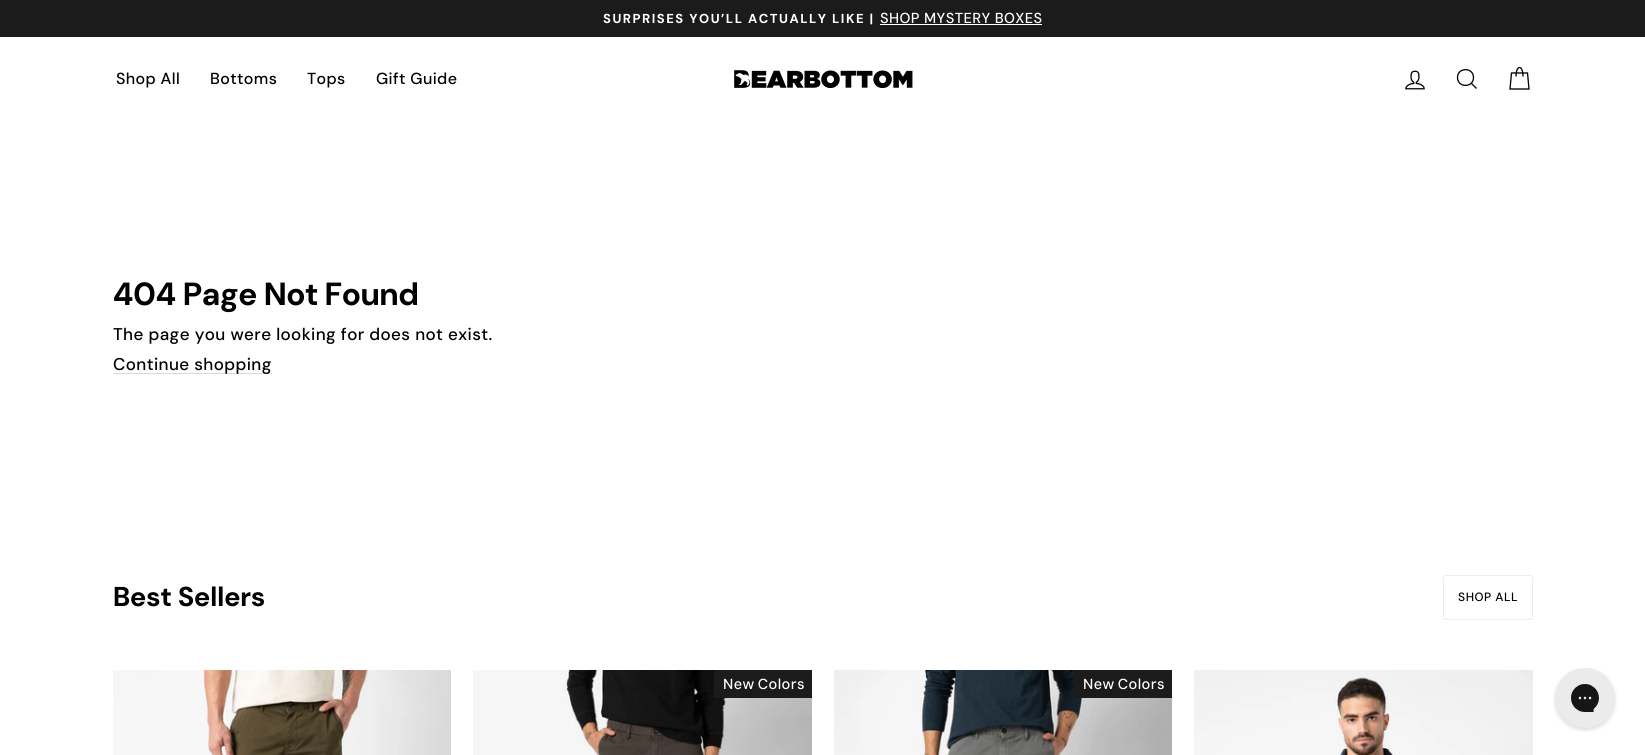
import math
import cairo


def use_color(cr, r, g, b):
  cr.set_source_rgb(r / 255, g / 255, b / 255)

def text(cr, x, y, s, family, size, color, bold=False, italic=False):
  cr.select_font_face(family, cairo.FONT_SLANT_ITALIC if italic else cairo.FONT_SLANT_NORMAL, cairo.FONT_WEIGHT_BOLD if bold else cairo.FONT_WEIGHT_NORMAL)
  cr.set_font_size(size)
  use_color(cr, *color)
  cr.move_to(x, y)
  cr.show_text(s)

def spaced_text(cr, x, y, s, letter, word):
  cr.move_to(x, y)
  for ch in s:
    cr.show_text(ch)
    cr.rel_move_to(letter + word * (ch == ' '), 0)

def box(cr, x, y, w, h, *color):
  use_color(cr, *color)
  cr.rectangle(x, y, w, h)
  cr.fill()

def round_rect(cr, x, y, w, h, r):
  cr.new_sub_path()
  for i, (u, v) in enumerate([(x + w - r, y + h - r), (x + r, y + h - r), (x + r, y + r), (x + w - r, y + r)]):
    cr.arc(u, v, r, i * math.pi / 2, (i + 1) * math.pi / 2)
  cr.close_path()

def picture(cr, path, x, y, w, h):
  cr.save()
  cr.set_source_surface(cairo.ImageSurface.create_from_png(path), x, y)
  cr.rectangle(x, y, w, h)
  cr.fill()
  cr.restore()

def draw(cr):
  use_color(cr, 255, 255, 255)
  cr.paint()
  box(cr, 0, 0, 1645, 37, 27, 27, 27)
  box(cr, 880, 24, 162, 1, 255, 255, 255)
  picture(cr, "img_01.png", 734, 70, 179, 18)
  picture(cr, "img_02.png", 1405, 70, 20, 20)
  cr.new_path()
  cr.move_to(1473.5, 77.5)
  cr.curve_to(1473.5, 88, 1457.5, 88, 1457.5, 77.5)
  cr.curve_to(1457.5, 67, 1473.5, 67, 1473.5, 77.5)
  cr.close_path()
  cr.move_to(1476.5, 88.5)
  cr.line_to(1471.5, 83.5)
  use_color(cr, 0, 0, 0)
  cr.set_line_width(1.3)
  cr.stroke()
  cr.new_path()
  cr.move_to(1516, 76.5)
  cr.curve_to(1516, 64.5, 1523, 64.5, 1523, 76.5)
  cr.move_to(1511.5, 73)
  cr.line_to(1527.5, 73)
  cr.line_to(1529, 89)
  cr.line_to(1510, 89)
  cr.close_path()
  cr.stroke()
  box(cr, 113, 373, 159, 1, 217, 217, 217)
  round_rect(cr, 1443.5, 575.5, 89, 44, 2.5)
  use_color(cr, 236, 236, 236)
  cr.set_line_width(1)
  cr.stroke()
  picture(cr, "img_03.png", 113, 670, 338, 85)
  picture(cr, "img_04.png", 473, 670, 339, 85)
  box(cr, 714, 670, 98, 28, 27, 27, 27)
  picture(cr, "img_05.png", 834, 670, 338, 85)
  box(cr, 1074, 670, 98, 28, 27, 27, 27)
  picture(cr, "img_06.png", 1194, 670, 339, 85)
  picture(cr, "img_07.png", 1553, 668, 64, 64)
  cr.select_font_face("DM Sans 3", cairo.FONT_SLANT_NORMAL, cairo.FONT_WEIGHT_BOLD)
  cr.set_font_size(13)
  use_color(cr, 255, 255, 255)
  spaced_text(cr, 603, 23, "SURPRISES YOU’LL ACTUALLY LIKE |", 1.5, 0)
  cr.select_font_face("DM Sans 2 Medium")
  cr.set_font_size(14.5)
  spaced_text(cr, 880, 23, "SHOP MYSTERY BOXES", 0.4, 0)
  cr.select_font_face("DM Sans 3 Medium")
  cr.set_font_size(16)
  use_color(cr, 0, 0, 0)
  spaced_text(cr, 116, 84, "Shop All", 0.4, 0)
  spaced_text(cr, 210, 84, "Bottoms", 0.4, 0)
  spaced_text(cr, 307, 84, "Tops", 0.4, 0)
  spaced_text(cr, 376, 84, "Gift Guide", 0.4, 0)
  text(cr, 113, 305, "404 Page Not Found", "DM Sans", 32, (0, 0, 0), bold=True)
  cr.select_font_face("DM Sans Medium")
  cr.set_font_size(17)
  spaced_text(cr, 113, 340, "The page you were looking for does not exist.", 0.4, 0)
  spaced_text(cr, 113, 370, "Continue shopping", 0.4, 0)
  text(cr, 113, 606, "Best Sellers", "DM Sans 2", 27.25, (0, 0, 0), bold=True)
  cr.select_font_face("DM Sans 2 Medium")
  cr.set_font_size(12)
  spaced_text(cr, 1458, 601, "SHOP ALL", 0.5, 0)
  cr.set_font_size(14.5)
  use_color(cr, 255, 255, 255)
  spaced_text(cr, 723, 689, "New Colors", 0.4, -1)
  spaced_text(cr, 1083, 689, "New Colors", 0.4, -1)


surface = cairo.ImageSurface(cairo.FORMAT_RGB24, 1645, 755)
cr = cairo.Context(surface)
options = cairo.FontOptions()
options.set_hint_metrics(cairo.HINT_METRICS_OFF)
options.set_hint_style(cairo.HINT_STYLE_NONE)
cr.set_font_options(options)
cr.set_miter_limit(4)
draw(cr)
surface.write_to_png("out.png")
